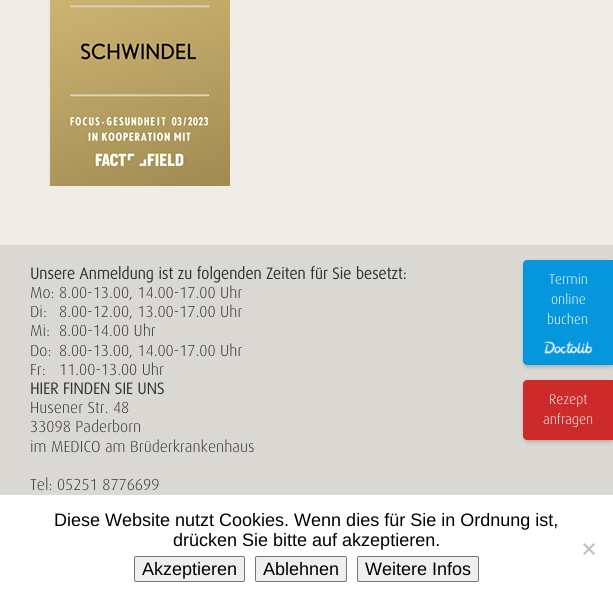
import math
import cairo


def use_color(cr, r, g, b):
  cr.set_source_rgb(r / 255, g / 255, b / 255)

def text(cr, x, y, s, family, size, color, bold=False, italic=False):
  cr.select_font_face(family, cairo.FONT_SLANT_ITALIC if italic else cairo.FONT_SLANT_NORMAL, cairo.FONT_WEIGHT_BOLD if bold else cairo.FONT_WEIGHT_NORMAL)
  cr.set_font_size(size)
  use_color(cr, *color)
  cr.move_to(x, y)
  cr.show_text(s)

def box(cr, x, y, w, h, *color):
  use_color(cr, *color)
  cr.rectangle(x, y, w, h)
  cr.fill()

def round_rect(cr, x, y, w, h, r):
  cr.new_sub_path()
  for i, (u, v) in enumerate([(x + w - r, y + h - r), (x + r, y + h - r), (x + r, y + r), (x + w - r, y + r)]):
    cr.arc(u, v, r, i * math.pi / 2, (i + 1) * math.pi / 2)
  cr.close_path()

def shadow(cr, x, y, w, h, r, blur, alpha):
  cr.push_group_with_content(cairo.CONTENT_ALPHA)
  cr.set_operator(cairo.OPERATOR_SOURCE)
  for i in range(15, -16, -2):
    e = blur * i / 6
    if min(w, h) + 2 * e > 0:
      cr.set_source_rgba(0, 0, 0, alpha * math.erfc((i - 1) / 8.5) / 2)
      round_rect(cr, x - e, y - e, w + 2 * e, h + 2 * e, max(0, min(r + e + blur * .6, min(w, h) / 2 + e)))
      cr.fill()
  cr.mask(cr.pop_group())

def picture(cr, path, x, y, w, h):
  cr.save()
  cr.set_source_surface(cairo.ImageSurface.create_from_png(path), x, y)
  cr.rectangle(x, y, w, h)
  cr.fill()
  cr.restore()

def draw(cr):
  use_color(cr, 240, 237, 232)
  cr.paint()
  box(cr, 0, 245, 613, 250, 218, 216, 211)
  use_color(cr, 0, 0, 0)
  shadow(cr, 524, 262, 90, 105, 4, 2, 0.2)
  use_color(cr, 5, 150, 222)
  cr.new_path()
  cr.move_to(527, 260)
  cr.line_to(613, 260)
  cr.line_to(613, 365)
  cr.line_to(527, 365)
  cr.curve_to(525, 365, 523, 363, 523, 361)
  cr.line_to(523, 264)
  cr.curve_to(523, 262, 525, 260, 527, 260)
  cr.close_path()
  cr.fill()
  picture(cr, "img_01.png", 544, 341, 49, 13)
  use_color(cr, 0, 0, 0)
  shadow(cr, 524, 382, 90, 60, 4, 2, 0.2)
  use_color(cr, 204, 43, 41)
  cr.new_path()
  cr.move_to(527, 380)
  cr.line_to(613, 380)
  cr.line_to(613, 440)
  cr.line_to(527, 440)
  cr.curve_to(525, 440, 523, 438, 523, 436)
  cr.line_to(523, 384)
  cr.curve_to(523, 382, 525, 380, 527, 380)
  cr.close_path()
  cr.fill()
  picture(cr, "img_02.png", 49, 0, 181, 186)
  box(cr, 0, 495, 613, 107, 255, 255, 255)
  use_color(cr, 192, 192, 192)
  cr.new_path()
  cr.move_to(593.5, 543)
  cr.line_to(595, 544.5)
  cr.line_to(584.5, 555)
  cr.line_to(583, 553.5)
  cr.close_path()
  cr.fill()
  cr.new_path()
  cr.move_to(583, 544.5)
  cr.line_to(584.5, 543)
  cr.line_to(595, 553.5)
  cr.line_to(593.5, 555)
  cr.close_path()
  cr.fill()
  use_color(cr, 239, 239, 239)
  round_rect(cr, 134.5, 556.5, 110, 25, 1.5)
  cr.fill_preserve()
  use_color(cr, 118, 118, 118)
  cr.set_line_width(1)
  cr.stroke()
  use_color(cr, 239, 239, 239)
  round_rect(cr, 255.5, 556.5, 91, 25, 1.5)
  cr.fill_preserve()
  use_color(cr, 118, 118, 118)
  cr.stroke()
  use_color(cr, 239, 239, 239)
  round_rect(cr, 357.5, 556.5, 121, 25, 1.5)
  cr.fill_preserve()
  use_color(cr, 118, 118, 118)
  cr.stroke()
  text(cr, 30, 279, "Unsere Anmeldung ist zu folgenden Zeiten für Sie besetzt:", "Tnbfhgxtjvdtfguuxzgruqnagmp", 16, (51, 51, 51), bold=True)
  text(cr, 30, 298, "Mo:", "Tnbfhgxtjvdtfguuxzgruqnagmp Light", 16, (51, 51, 51))
  text(cr, 59, 298, "8.00-13.00, 14.00-17.00 Uhr", "Tnbfhgxtjvdtfguuxzgruqnagmp Light", 16, (51, 51, 51))
  text(cr, 30, 317, "Di:", "Tnbfhgxtjvdtfguuxzgruqnagmp Light", 16, (51, 51, 51))
  text(cr, 59, 317, "8.00-12.00, 13.00-17.00 Uhr", "Tnbfhgxtjvdtfguuxzgruqnagmp Light", 16, (51, 51, 51))
  text(cr, 30, 336, "Mi:", "Tnbfhgxtjvdtfguuxzgruqnagmp Light", 16, (51, 51, 51))
  text(cr, 59, 336, "8.00-14.00 Uhr", "Tnbfhgxtjvdtfguuxzgruqnagmp Light", 16, (51, 51, 51))
  text(cr, 30, 356, "Do:", "Tnbfhgxtjvdtfguuxzgruqnagmp Light", 16, (51, 51, 51))
  text(cr, 59, 356, "8.00-13.00, 14.00-17.00 Uhr", "Tnbfhgxtjvdtfguuxzgruqnagmp Light", 16, (51, 51, 51))
  text(cr, 30, 375, "Fr:", "Tnbfhgxtjvdtfguuxzgruqnagmp Light", 16, (51, 51, 51))
  text(cr, 59, 375, "11.00-13.00 Uhr", "Tnbfhgxtjvdtfguuxzgruqnagmp Light", 16, (51, 51, 51))
  text(cr, 30, 394, "HIER FINDEN SIE UNS", "Tnbfhgxtjvdtfguuxzgruqnagmp", 16, (51, 51, 51), bold=True)
  text(cr, 30, 413, "Husener Str. 48", "Tnbfhgxtjvdtfguuxzgruqnagmp Light", 16, (51, 51, 51))
  text(cr, 30, 432, "33098 Paderborn", "Tnbfhgxtjvdtfguuxzgruqnagmp Light", 16, (51, 51, 51))
  text(cr, 30, 452, "im MEDICO am Brüderkrankenhaus", "Tnbfhgxtjvdtfguuxzgruqnagmp Light", 16, (51, 51, 51))
  text(cr, 30, 490, "Tel: 05251 8776699", "Tnbfhgxtjvdtfguuxzgruqnagmp Light", 16, (51, 51, 51))
  text(cr, 549, 284, "Termin", "Tnbfhgxtjvdtfguuxzgruqnagmp Light", 14, (255, 255, 255))
  text(cr, 551, 304, "online", "Tnbfhgxtjvdtfguuxzgruqnagmp Light", 14, (255, 255, 255))
  text(cr, 547, 324, "buchen", "Tnbfhgxtjvdtfguuxzgruqnagmp Light", 14, (255, 255, 255))
  text(cr, 549, 404, "Rezept", "Tnbfhgxtjvdtfguuxzgruqnagmp Light", 14, (255, 255, 255))
  text(cr, 543, 424, "anfragen", "Tnbfhgxtjvdtfguuxzgruqnagmp Light", 14, (255, 255, 255))
  text(cr, 54, 526, "Diese Website nutzt Cookies. Wenn dies für Sie in Ordnung ist,", "Liberation Sans", 18, (0, 0, 0))
  text(cr, 173, 546, "drücken Sie bitte auf akzeptieren.", "Liberation Sans", 18, (0, 0, 0))
  text(cr, 142, 575, "Akzeptieren", "Liberation Sans", 18, (0, 0, 0))
  text(cr, 263, 575, "Ablehnen", "Liberation Sans", 18, (0, 0, 0))
  text(cr, 365, 575, "Weitere Infos", "Liberation Sans", 18, (0, 0, 0))


surface = cairo.ImageSurface(cairo.FORMAT_RGB24, 613, 602)
cr = cairo.Context(surface)
options = cairo.FontOptions()
options.set_hint_metrics(cairo.HINT_METRICS_OFF)
options.set_hint_style(cairo.HINT_STYLE_NONE)
cr.set_font_options(options)
cr.set_miter_limit(4)
draw(cr)
surface.write_to_png("out.png")
